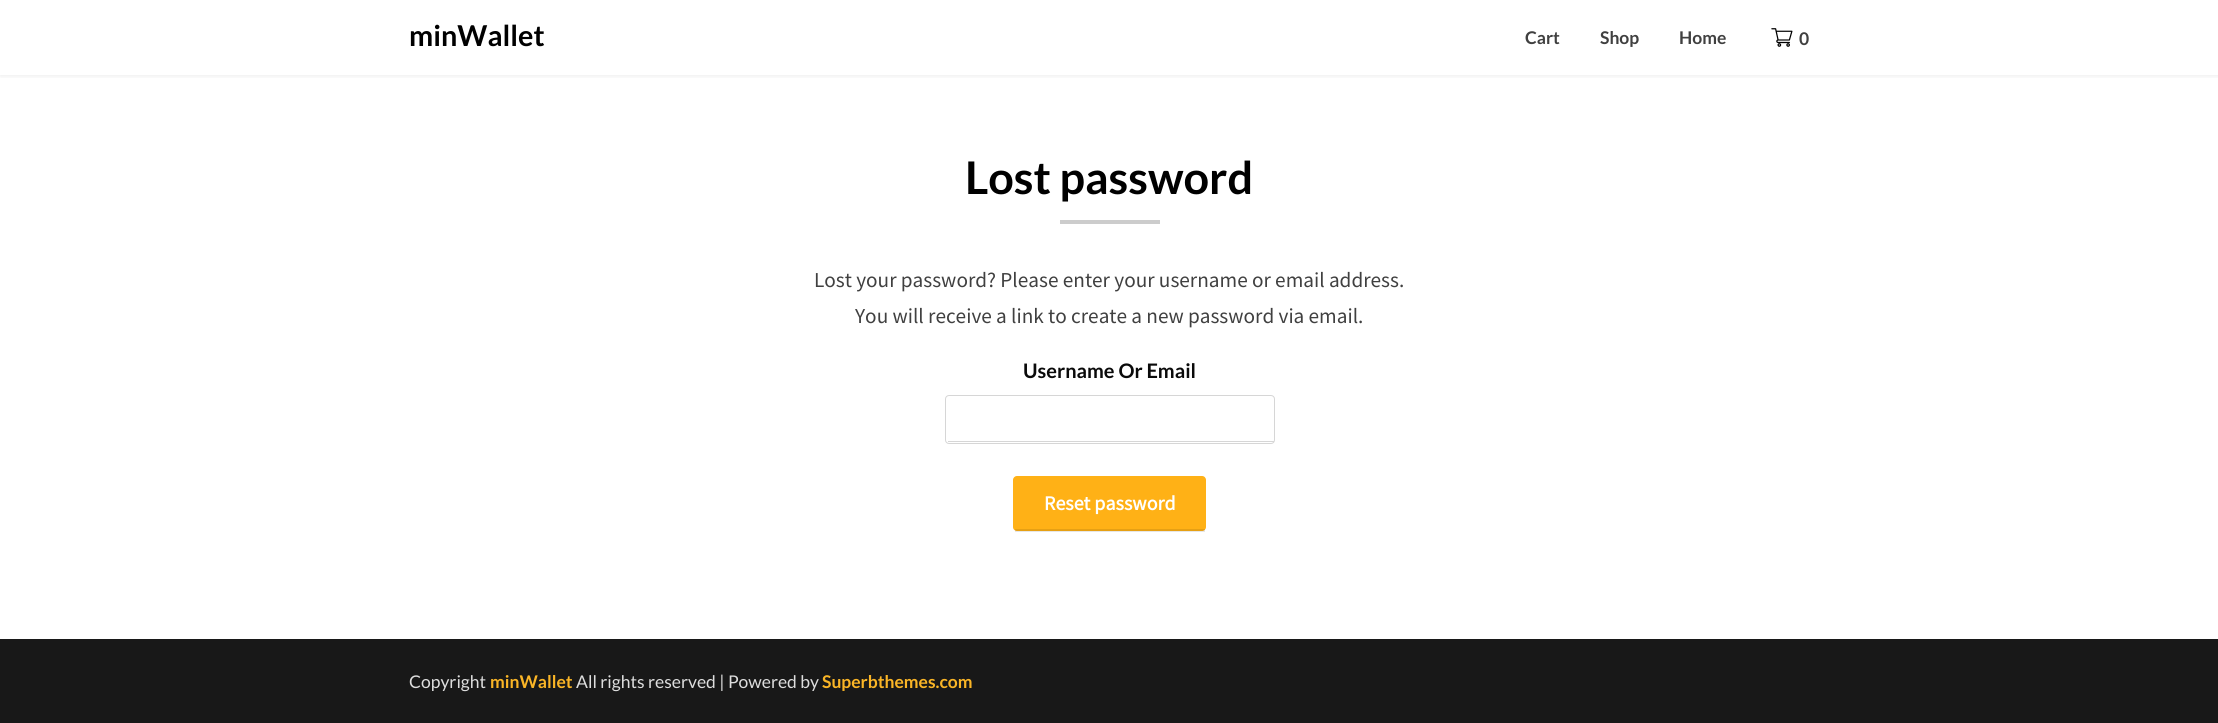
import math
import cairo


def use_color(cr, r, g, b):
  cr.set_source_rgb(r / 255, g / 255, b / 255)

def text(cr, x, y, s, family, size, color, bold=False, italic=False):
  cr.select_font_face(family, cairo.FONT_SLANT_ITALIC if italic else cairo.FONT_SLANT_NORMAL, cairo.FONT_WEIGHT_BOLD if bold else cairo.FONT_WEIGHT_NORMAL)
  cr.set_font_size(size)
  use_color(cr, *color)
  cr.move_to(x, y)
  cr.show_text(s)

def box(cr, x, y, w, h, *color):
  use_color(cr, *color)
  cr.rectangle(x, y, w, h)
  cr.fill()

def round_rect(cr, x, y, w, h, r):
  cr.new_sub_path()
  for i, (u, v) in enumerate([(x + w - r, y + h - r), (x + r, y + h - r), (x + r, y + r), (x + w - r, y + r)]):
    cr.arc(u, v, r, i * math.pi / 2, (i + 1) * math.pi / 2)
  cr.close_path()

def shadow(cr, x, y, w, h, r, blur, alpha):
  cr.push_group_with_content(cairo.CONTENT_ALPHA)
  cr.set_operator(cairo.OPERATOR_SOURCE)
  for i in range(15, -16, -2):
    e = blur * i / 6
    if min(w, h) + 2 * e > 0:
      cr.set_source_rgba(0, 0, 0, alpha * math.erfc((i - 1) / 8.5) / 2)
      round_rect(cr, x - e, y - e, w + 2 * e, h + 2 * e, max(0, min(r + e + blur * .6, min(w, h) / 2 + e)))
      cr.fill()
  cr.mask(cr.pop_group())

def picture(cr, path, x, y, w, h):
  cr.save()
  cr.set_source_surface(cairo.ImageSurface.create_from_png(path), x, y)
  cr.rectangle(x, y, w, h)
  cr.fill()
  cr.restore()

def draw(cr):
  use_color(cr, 255, 255, 255)
  cr.paint()
  cr.save()
  cr.rectangle(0, 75, 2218, 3)
  cr.clip()
  use_color(cr, 0, 0, 0)
  shadow(cr, 0, 1, 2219, 75, 0, 2.5, 0.08)
  cr.restore()
  picture(cr, "img_01.png", 1771, 28, 22, 19)
  box(cr, 1060, 220, 100, 4, 204, 204, 204)
  round_rect(cr, 945.5, 395.5, 329, 48, 3.5)
  use_color(cr, 214, 214, 214)
  cr.set_line_width(1)
  cr.stroke()
  box(cr, 948, 441, 326, 1, 214, 214, 214)
  use_color(cr, 255, 177, 22)
  round_rect(cr, 1013, 476, 193, 55, 4)
  cr.fill()
  cr.set_source_rgba(0, 0, 0, 0.1)
  cr.rectangle(1015, 529, 190, 3)
  cr.fill()
  box(cr, 0, 639, 2218, 84, 24, 24, 24)
  text(cr, 409, 46, "minWallet", "Lato", 28.75, (0, 0, 0), bold=True)
  text(cr, 1525, 44, "Cart", "Lato", 17.5, (64, 64, 64), bold=True)
  text(cr, 1600, 44, "Shop", "Lato", 17.5, (64, 64, 64), bold=True)
  text(cr, 1679, 44, "Home", "Lato", 17.5, (64, 64, 64), bold=True)
  text(cr, 1799, 45, "0", "Lato", 17.5, (64, 64, 64), bold=True)
  text(cr, 965, 194, "Lost password", "Lato", 45, (0, 0, 0), bold=True)
  text(cr, 814, 287, "Lost your password? Please enter your username or email address.", "Source Sans Pro", 21.25, (64, 64, 64))
  text(cr, 855, 323, "You will receive a link to create a new password via email.", "Source Sans Pro", 21.25, (64, 64, 64))
  text(cr, 1023, 378, "Username Or Email", "Lato", 20, (10, 10, 10), bold=True)
  text(cr, 1044, 510, "Reset password", "Source Sans Pro", 20, (255, 255, 255), bold=True)
  text(cr, 409, 688, "Copyright", "Lato", 17.5, (222, 222, 222))
  text(cr, 490, 688, "minWallet", "Lato", 17.5, (250, 181, 38), bold=True)
  text(cr, 576, 688, "All rights reserved | Powered by", "Lato", 17.5, (222, 222, 222))
  text(cr, 822, 688, "Superbthemes.com", "Lato", 17.5, (250, 181, 38), bold=True)


surface = cairo.ImageSurface(cairo.FORMAT_RGB24, 2218, 723)
cr = cairo.Context(surface)
options = cairo.FontOptions()
options.set_hint_metrics(cairo.HINT_METRICS_OFF)
options.set_hint_style(cairo.HINT_STYLE_NONE)
cr.set_font_options(options)
cr.set_miter_limit(4)
draw(cr)
surface.write_to_png("out.png")
